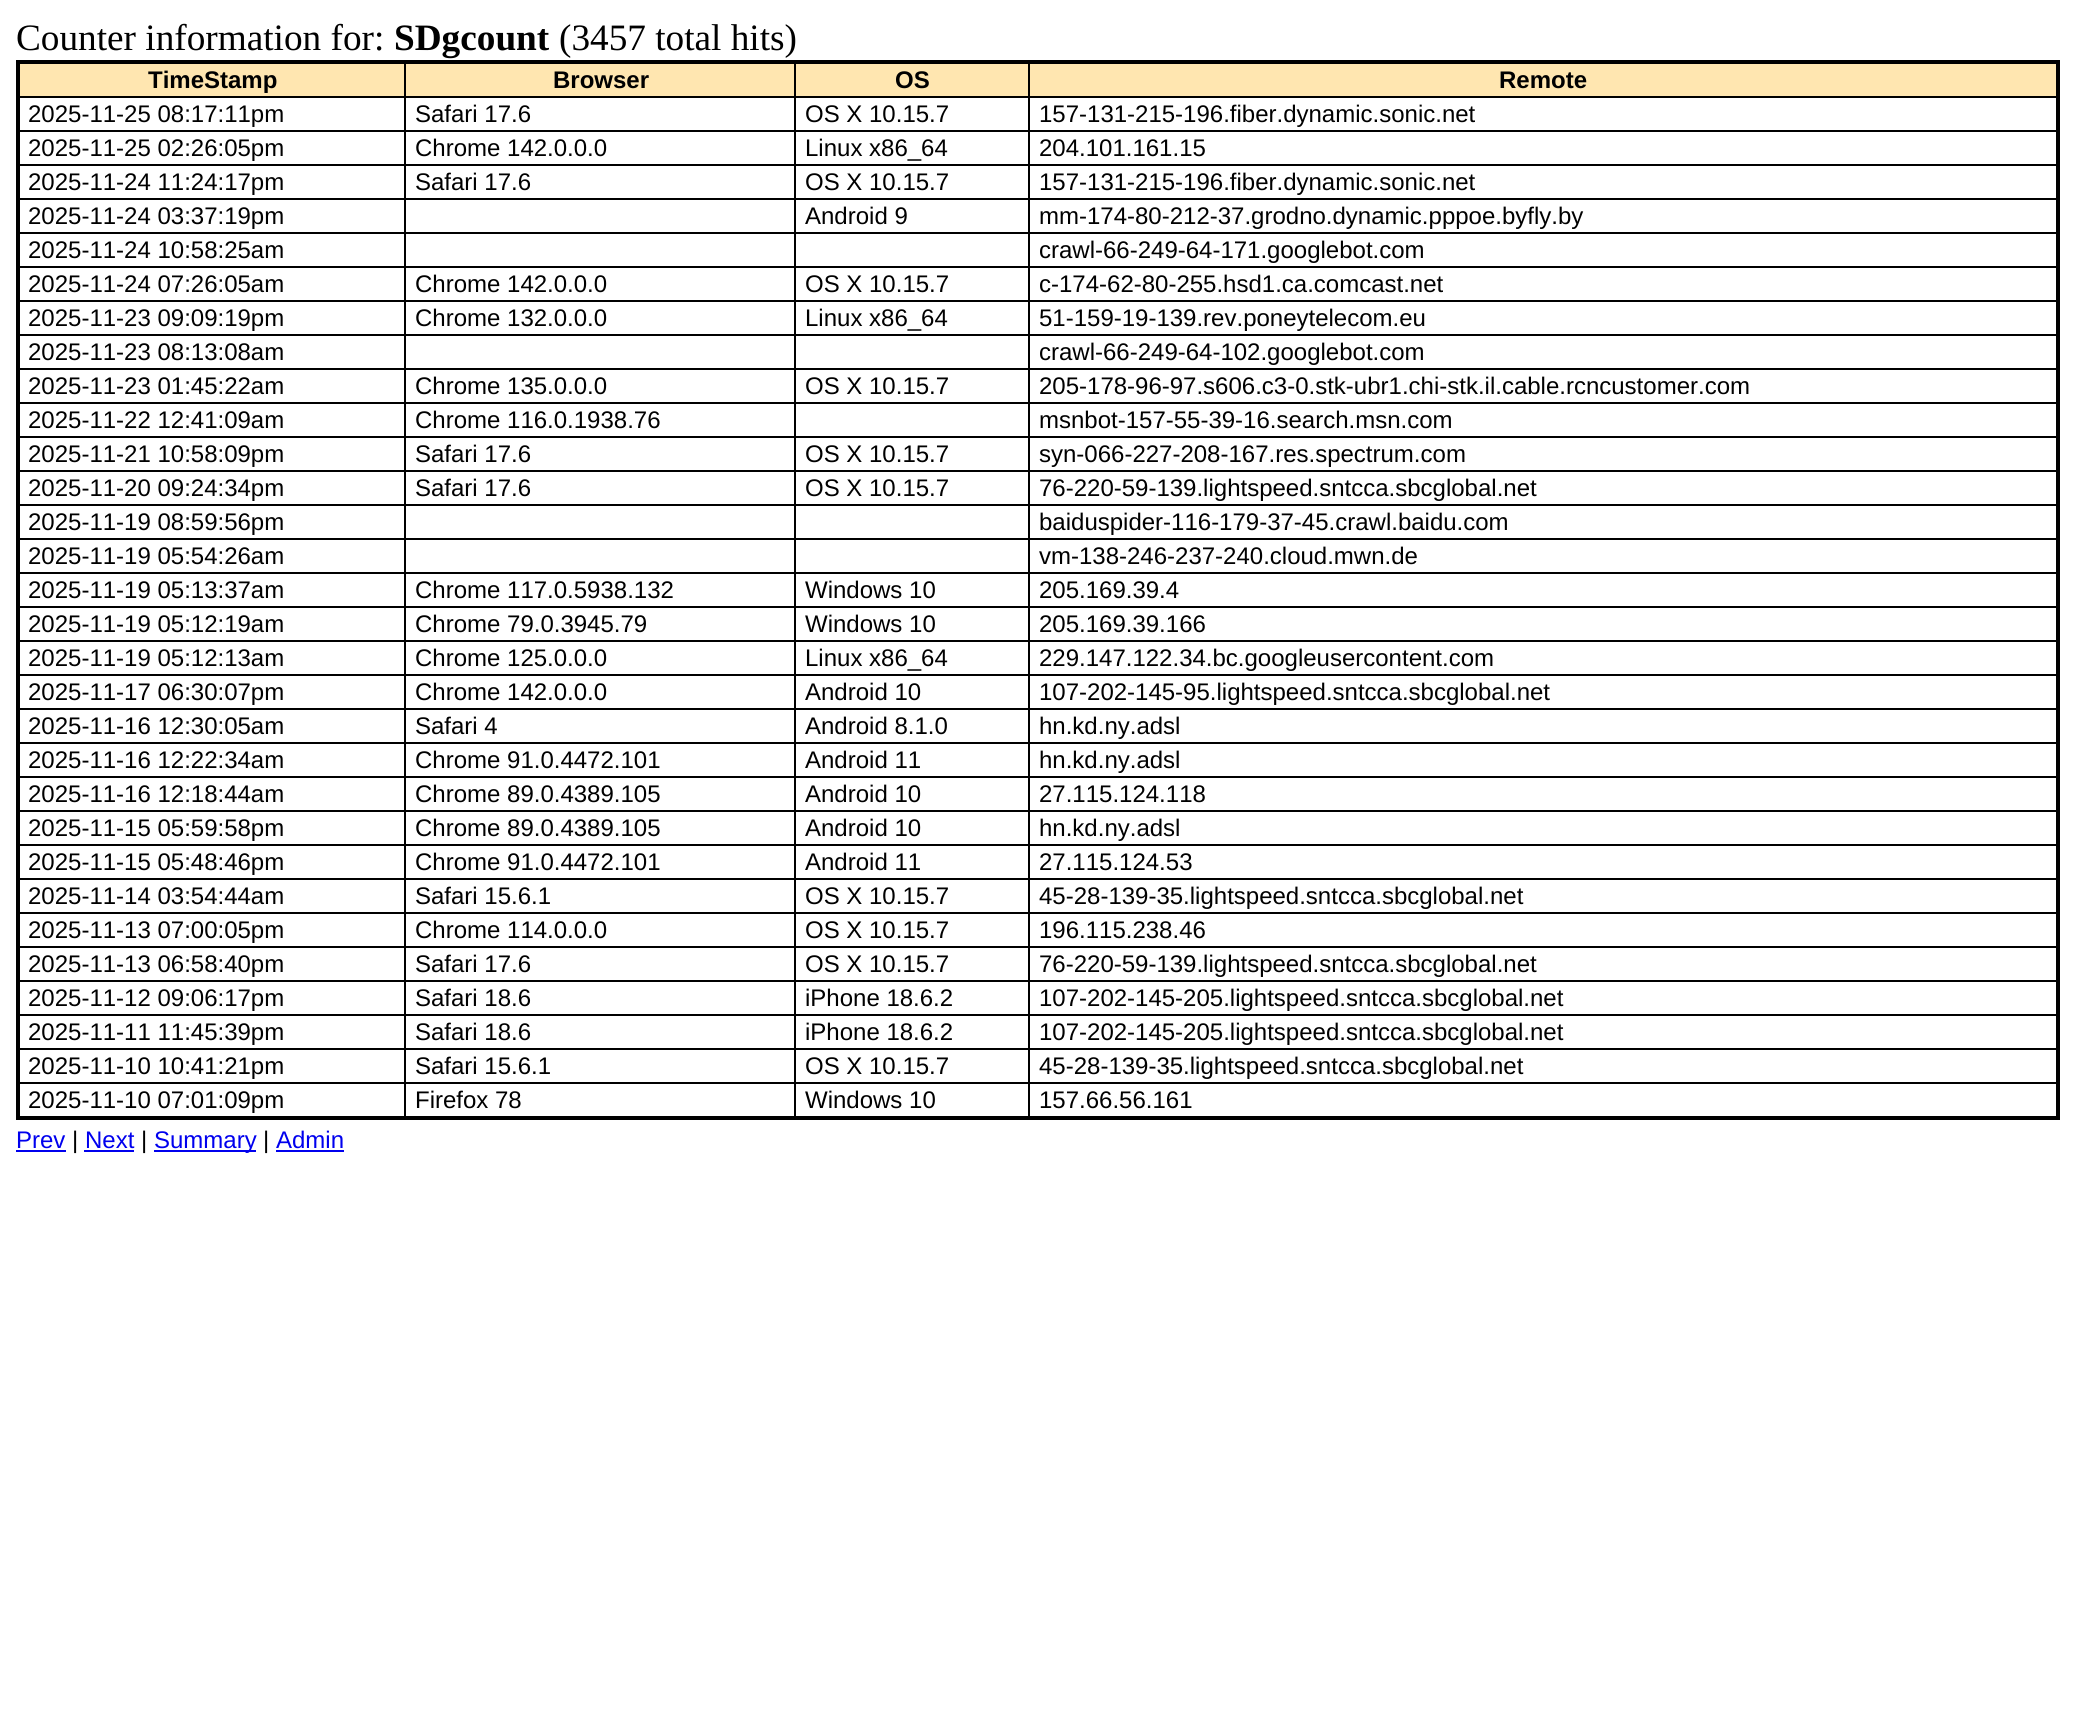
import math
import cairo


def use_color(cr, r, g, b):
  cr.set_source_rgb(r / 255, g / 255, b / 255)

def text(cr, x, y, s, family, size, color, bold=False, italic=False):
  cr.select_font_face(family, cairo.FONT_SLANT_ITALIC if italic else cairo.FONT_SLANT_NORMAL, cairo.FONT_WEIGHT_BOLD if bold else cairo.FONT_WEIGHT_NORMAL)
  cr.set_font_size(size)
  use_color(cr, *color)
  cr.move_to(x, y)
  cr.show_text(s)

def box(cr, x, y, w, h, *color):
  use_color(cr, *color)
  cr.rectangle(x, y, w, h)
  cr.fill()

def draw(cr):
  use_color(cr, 255, 255, 255)
  cr.paint()
  box(cr, 20, 64, 2036, 32, 255, 230, 176)
  box(cr, 1028, 96, 1032, 2, 0, 0, 0)
  box(cr, 1028, 130, 1032, 2, 0, 0, 0)
  box(cr, 1028, 164, 1032, 2, 0, 0, 0)
  box(cr, 1028, 198, 1032, 2, 0, 0, 0)
  box(cr, 1028, 232, 1032, 2, 0, 0, 0)
  box(cr, 1028, 266, 1032, 2, 0, 0, 0)
  box(cr, 1028, 300, 1032, 2, 0, 0, 0)
  box(cr, 1028, 334, 1032, 2, 0, 0, 0)
  box(cr, 1028, 368, 1032, 2, 0, 0, 0)
  box(cr, 1028, 402, 1032, 2, 0, 0, 0)
  box(cr, 1028, 436, 1032, 2, 0, 0, 0)
  box(cr, 1028, 470, 1032, 2, 0, 0, 0)
  box(cr, 1028, 504, 1032, 2, 0, 0, 0)
  box(cr, 1028, 538, 1032, 2, 0, 0, 0)
  box(cr, 1028, 572, 1032, 2, 0, 0, 0)
  box(cr, 1028, 606, 1032, 2, 0, 0, 0)
  box(cr, 1028, 640, 1032, 2, 0, 0, 0)
  box(cr, 1028, 674, 1032, 2, 0, 0, 0)
  box(cr, 1028, 708, 1032, 2, 0, 0, 0)
  box(cr, 1028, 742, 1032, 2, 0, 0, 0)
  box(cr, 1028, 776, 1032, 2, 0, 0, 0)
  box(cr, 1028, 810, 1032, 2, 0, 0, 0)
  box(cr, 1028, 844, 1032, 2, 0, 0, 0)
  box(cr, 1028, 878, 1032, 2, 0, 0, 0)
  box(cr, 1028, 912, 1032, 2, 0, 0, 0)
  box(cr, 1028, 946, 1032, 2, 0, 0, 0)
  box(cr, 1028, 980, 1032, 2, 0, 0, 0)
  box(cr, 1028, 1014, 1032, 2, 0, 0, 0)
  box(cr, 1028, 1048, 1032, 2, 0, 0, 0)
  box(cr, 1028, 1082, 1032, 2, 0, 0, 0)
  box(cr, 1028, 1082, 2, 38, 0, 0, 0)
  box(cr, 794, 1082, 236, 2, 0, 0, 0)
  box(cr, 1028, 1048, 2, 36, 0, 0, 0)
  box(cr, 794, 1048, 236, 2, 0, 0, 0)
  box(cr, 1028, 1014, 2, 36, 0, 0, 0)
  box(cr, 794, 1014, 236, 2, 0, 0, 0)
  box(cr, 1028, 980, 2, 36, 0, 0, 0)
  box(cr, 794, 980, 236, 2, 0, 0, 0)
  box(cr, 1028, 946, 2, 36, 0, 0, 0)
  box(cr, 794, 946, 236, 2, 0, 0, 0)
  box(cr, 1028, 912, 2, 36, 0, 0, 0)
  box(cr, 794, 912, 236, 2, 0, 0, 0)
  box(cr, 1028, 878, 2, 36, 0, 0, 0)
  box(cr, 794, 878, 236, 2, 0, 0, 0)
  box(cr, 1028, 844, 2, 36, 0, 0, 0)
  box(cr, 794, 844, 236, 2, 0, 0, 0)
  box(cr, 1028, 810, 2, 36, 0, 0, 0)
  box(cr, 794, 810, 236, 2, 0, 0, 0)
  box(cr, 1028, 776, 2, 36, 0, 0, 0)
  box(cr, 794, 776, 236, 2, 0, 0, 0)
  box(cr, 1028, 742, 2, 36, 0, 0, 0)
  box(cr, 794, 742, 236, 2, 0, 0, 0)
  box(cr, 1028, 708, 2, 36, 0, 0, 0)
  box(cr, 794, 708, 236, 2, 0, 0, 0)
  box(cr, 1028, 674, 2, 36, 0, 0, 0)
  box(cr, 794, 674, 236, 2, 0, 0, 0)
  box(cr, 1028, 640, 2, 36, 0, 0, 0)
  box(cr, 794, 640, 236, 2, 0, 0, 0)
  box(cr, 1028, 606, 2, 36, 0, 0, 0)
  box(cr, 794, 606, 236, 2, 0, 0, 0)
  box(cr, 1028, 572, 2, 36, 0, 0, 0)
  box(cr, 794, 572, 236, 2, 0, 0, 0)
  box(cr, 1028, 538, 2, 36, 0, 0, 0)
  box(cr, 794, 538, 236, 2, 0, 0, 0)
  box(cr, 1028, 504, 2, 36, 0, 0, 0)
  box(cr, 794, 504, 236, 2, 0, 0, 0)
  box(cr, 1028, 470, 2, 36, 0, 0, 0)
  box(cr, 794, 470, 236, 2, 0, 0, 0)
  box(cr, 1028, 436, 2, 36, 0, 0, 0)
  box(cr, 794, 436, 236, 2, 0, 0, 0)
  box(cr, 1028, 402, 2, 36, 0, 0, 0)
  box(cr, 794, 402, 236, 2, 0, 0, 0)
  box(cr, 1028, 368, 2, 36, 0, 0, 0)
  box(cr, 794, 368, 236, 2, 0, 0, 0)
  box(cr, 1028, 334, 2, 36, 0, 0, 0)
  box(cr, 794, 334, 236, 2, 0, 0, 0)
  box(cr, 1028, 300, 2, 36, 0, 0, 0)
  box(cr, 794, 300, 236, 2, 0, 0, 0)
  box(cr, 1028, 266, 2, 36, 0, 0, 0)
  box(cr, 794, 266, 236, 2, 0, 0, 0)
  box(cr, 1028, 232, 2, 36, 0, 0, 0)
  box(cr, 794, 232, 236, 2, 0, 0, 0)
  box(cr, 1028, 198, 2, 36, 0, 0, 0)
  box(cr, 794, 198, 236, 2, 0, 0, 0)
  box(cr, 1028, 164, 2, 36, 0, 0, 0)
  box(cr, 794, 164, 236, 2, 0, 0, 0)
  box(cr, 1028, 130, 2, 36, 0, 0, 0)
  box(cr, 794, 130, 236, 2, 0, 0, 0)
  box(cr, 1028, 96, 2, 36, 0, 0, 0)
  box(cr, 794, 96, 236, 2, 0, 0, 0)
  box(cr, 794, 1082, 2, 38, 0, 0, 0)
  box(cr, 404, 1082, 392, 2, 0, 0, 0)
  box(cr, 794, 1048, 2, 36, 0, 0, 0)
  box(cr, 404, 1048, 392, 2, 0, 0, 0)
  box(cr, 794, 1014, 2, 36, 0, 0, 0)
  box(cr, 404, 1014, 392, 2, 0, 0, 0)
  box(cr, 794, 980, 2, 36, 0, 0, 0)
  box(cr, 404, 980, 392, 2, 0, 0, 0)
  box(cr, 794, 946, 2, 36, 0, 0, 0)
  box(cr, 404, 946, 392, 2, 0, 0, 0)
  box(cr, 794, 912, 2, 36, 0, 0, 0)
  box(cr, 404, 912, 392, 2, 0, 0, 0)
  box(cr, 794, 878, 2, 36, 0, 0, 0)
  box(cr, 404, 878, 392, 2, 0, 0, 0)
  box(cr, 794, 844, 2, 36, 0, 0, 0)
  box(cr, 404, 844, 392, 2, 0, 0, 0)
  box(cr, 794, 810, 2, 36, 0, 0, 0)
  box(cr, 404, 810, 392, 2, 0, 0, 0)
  box(cr, 794, 776, 2, 36, 0, 0, 0)
  box(cr, 404, 776, 392, 2, 0, 0, 0)
  box(cr, 794, 742, 2, 36, 0, 0, 0)
  box(cr, 404, 742, 392, 2, 0, 0, 0)
  box(cr, 794, 708, 2, 36, 0, 0, 0)
  box(cr, 404, 708, 392, 2, 0, 0, 0)
  box(cr, 794, 674, 2, 36, 0, 0, 0)
  box(cr, 404, 674, 392, 2, 0, 0, 0)
  box(cr, 794, 640, 2, 36, 0, 0, 0)
  box(cr, 404, 640, 392, 2, 0, 0, 0)
  box(cr, 794, 606, 2, 36, 0, 0, 0)
  box(cr, 404, 606, 392, 2, 0, 0, 0)
  box(cr, 794, 572, 2, 36, 0, 0, 0)
  box(cr, 404, 572, 392, 2, 0, 0, 0)
  box(cr, 794, 538, 2, 36, 0, 0, 0)
  box(cr, 404, 538, 392, 2, 0, 0, 0)
  box(cr, 794, 504, 2, 36, 0, 0, 0)
  box(cr, 404, 504, 392, 2, 0, 0, 0)
  box(cr, 794, 470, 2, 36, 0, 0, 0)
  box(cr, 404, 470, 392, 2, 0, 0, 0)
  box(cr, 794, 436, 2, 36, 0, 0, 0)
  box(cr, 404, 436, 392, 2, 0, 0, 0)
  box(cr, 794, 402, 2, 36, 0, 0, 0)
  box(cr, 404, 402, 392, 2, 0, 0, 0)
  box(cr, 794, 368, 2, 36, 0, 0, 0)
  box(cr, 404, 368, 392, 2, 0, 0, 0)
  box(cr, 794, 334, 2, 36, 0, 0, 0)
  box(cr, 404, 334, 392, 2, 0, 0, 0)
  box(cr, 794, 300, 2, 36, 0, 0, 0)
  box(cr, 404, 300, 392, 2, 0, 0, 0)
  box(cr, 794, 266, 2, 36, 0, 0, 0)
  box(cr, 404, 266, 392, 2, 0, 0, 0)
  box(cr, 794, 232, 2, 36, 0, 0, 0)
  box(cr, 404, 232, 392, 2, 0, 0, 0)
  box(cr, 794, 198, 2, 36, 0, 0, 0)
  box(cr, 404, 198, 392, 2, 0, 0, 0)
  box(cr, 794, 164, 2, 36, 0, 0, 0)
  box(cr, 404, 164, 392, 2, 0, 0, 0)
  box(cr, 794, 130, 2, 36, 0, 0, 0)
  box(cr, 404, 130, 392, 2, 0, 0, 0)
  box(cr, 794, 96, 2, 36, 0, 0, 0)
  box(cr, 404, 96, 392, 2, 0, 0, 0)
  box(cr, 404, 1082, 2, 38, 0, 0, 0)
  box(cr, 18, 1082, 388, 2, 0, 0, 0)
  box(cr, 404, 1048, 2, 36, 0, 0, 0)
  box(cr, 18, 1048, 388, 2, 0, 0, 0)
  box(cr, 404, 1014, 2, 36, 0, 0, 0)
  box(cr, 18, 1014, 388, 2, 0, 0, 0)
  box(cr, 404, 980, 2, 36, 0, 0, 0)
  box(cr, 18, 980, 388, 2, 0, 0, 0)
  box(cr, 404, 946, 2, 36, 0, 0, 0)
  box(cr, 18, 946, 388, 2, 0, 0, 0)
  box(cr, 404, 912, 2, 36, 0, 0, 0)
  box(cr, 18, 912, 388, 2, 0, 0, 0)
  box(cr, 404, 878, 2, 36, 0, 0, 0)
  box(cr, 18, 878, 388, 2, 0, 0, 0)
  box(cr, 404, 844, 2, 36, 0, 0, 0)
  box(cr, 18, 844, 388, 2, 0, 0, 0)
  box(cr, 404, 810, 2, 36, 0, 0, 0)
  box(cr, 18, 810, 388, 2, 0, 0, 0)
  box(cr, 404, 776, 2, 36, 0, 0, 0)
  box(cr, 18, 776, 388, 2, 0, 0, 0)
  box(cr, 404, 742, 2, 36, 0, 0, 0)
  box(cr, 18, 742, 388, 2, 0, 0, 0)
  box(cr, 404, 708, 2, 36, 0, 0, 0)
  box(cr, 18, 708, 388, 2, 0, 0, 0)
  box(cr, 404, 674, 2, 36, 0, 0, 0)
  box(cr, 18, 674, 388, 2, 0, 0, 0)
  box(cr, 404, 640, 2, 36, 0, 0, 0)
  box(cr, 18, 640, 388, 2, 0, 0, 0)
  box(cr, 404, 606, 2, 36, 0, 0, 0)
  box(cr, 18, 606, 388, 2, 0, 0, 0)
  box(cr, 404, 572, 2, 36, 0, 0, 0)
  box(cr, 18, 572, 388, 2, 0, 0, 0)
  box(cr, 404, 538, 2, 36, 0, 0, 0)
  box(cr, 18, 538, 388, 2, 0, 0, 0)
  box(cr, 404, 504, 2, 36, 0, 0, 0)
  box(cr, 18, 504, 388, 2, 0, 0, 0)
  box(cr, 404, 470, 2, 36, 0, 0, 0)
  box(cr, 18, 470, 388, 2, 0, 0, 0)
  box(cr, 404, 436, 2, 36, 0, 0, 0)
  box(cr, 18, 436, 388, 2, 0, 0, 0)
  box(cr, 404, 402, 2, 36, 0, 0, 0)
  box(cr, 18, 402, 388, 2, 0, 0, 0)
  box(cr, 404, 368, 2, 36, 0, 0, 0)
  box(cr, 18, 368, 388, 2, 0, 0, 0)
  box(cr, 404, 334, 2, 36, 0, 0, 0)
  box(cr, 18, 334, 388, 2, 0, 0, 0)
  box(cr, 404, 300, 2, 36, 0, 0, 0)
  box(cr, 18, 300, 388, 2, 0, 0, 0)
  box(cr, 404, 266, 2, 36, 0, 0, 0)
  box(cr, 18, 266, 388, 2, 0, 0, 0)
  box(cr, 404, 232, 2, 36, 0, 0, 0)
  box(cr, 18, 232, 388, 2, 0, 0, 0)
  box(cr, 404, 198, 2, 36, 0, 0, 0)
  box(cr, 18, 198, 388, 2, 0, 0, 0)
  box(cr, 404, 164, 2, 36, 0, 0, 0)
  box(cr, 18, 164, 388, 2, 0, 0, 0)
  box(cr, 404, 130, 2, 36, 0, 0, 0)
  box(cr, 18, 130, 388, 2, 0, 0, 0)
  box(cr, 404, 96, 2, 36, 0, 0, 0)
  box(cr, 18, 96, 388, 2, 0, 0, 0)
  box(cr, 404, 62, 2, 36, 0, 0, 0)
  box(cr, 794, 62, 2, 36, 0, 0, 0)
  box(cr, 1028, 62, 2, 36, 0, 0, 0)
  box(cr, 16, 60, 2044, 4, 0, 0, 0)
  box(cr, 2056, 60, 4, 1060, 0, 0, 0)
  box(cr, 16, 1116, 2044, 4, 0, 0, 0)
  box(cr, 16, 60, 4, 1060, 0, 0, 0)
  box(cr, 16, 1150, 50, 2, 0, 0, 238)
  box(cr, 84, 1150, 50, 2, 0, 0, 238)
  box(cr, 154, 1150, 102, 2, 0, 0, 238)
  box(cr, 276, 1150, 68, 2, 0, 0, 238)
  text(cr, 16, 50, "Counter information for:", "Liberation Serif", 37.25, (0, 0, 0))
  text(cr, 394, 50, "SDgcount", "Liberation Serif", 37.25, (0, 0, 0), bold=True)
  text(cr, 559, 50, "(3457 total hits)", "Liberation Serif", 37.25, (0, 0, 0))
  text(cr, 148, 88, "TimeStamp", "Liberation Sans", 24, (0, 0, 0), bold=True)
  text(cr, 553, 88, "Browser", "Liberation Sans", 24, (0, 0, 0), bold=True)
  text(cr, 895, 88, "OS", "Liberation Sans", 24, (0, 0, 0), bold=True)
  text(cr, 1499, 88, "Remote", "Liberation Sans", 24, (0, 0, 0), bold=True)
  text(cr, 28, 122, "2025-11-25 08:17:11pm", "Liberation Sans", 24, (0, 0, 0))
  text(cr, 415, 122, "Safari 17.6", "Liberation Sans", 24, (0, 0, 0))
  text(cr, 805, 122, "OS X 10.15.7", "Liberation Sans", 24, (0, 0, 0))
  text(cr, 1039, 122, "157-131-215-196.fiber.dynamic.sonic.net", "Liberation Sans", 24, (0, 0, 0))
  text(cr, 28, 156, "2025-11-25 02:26:05pm", "Liberation Sans", 24, (0, 0, 0))
  text(cr, 415, 156, "Chrome 142.0.0.0", "Liberation Sans", 24, (0, 0, 0))
  text(cr, 805, 156, "Linux x86_64", "Liberation Sans", 24, (0, 0, 0))
  text(cr, 1039, 156, "204.101.161.15", "Liberation Sans", 24, (0, 0, 0))
  text(cr, 28, 190, "2025-11-24 11:24:17pm", "Liberation Sans", 24, (0, 0, 0))
  text(cr, 415, 190, "Safari 17.6", "Liberation Sans", 24, (0, 0, 0))
  text(cr, 805, 190, "OS X 10.15.7", "Liberation Sans", 24, (0, 0, 0))
  text(cr, 1039, 190, "157-131-215-196.fiber.dynamic.sonic.net", "Liberation Sans", 24, (0, 0, 0))
  text(cr, 28, 224, "2025-11-24 03:37:19pm", "Liberation Sans", 24, (0, 0, 0))
  text(cr, 805, 224, "Android 9", "Liberation Sans", 24, (0, 0, 0))
  text(cr, 1039, 224, "mm-174-80-212-37.grodno.dynamic.pppoe.byfly.by", "Liberation Sans", 24, (0, 0, 0))
  text(cr, 28, 258, "2025-11-24 10:58:25am", "Liberation Sans", 24, (0, 0, 0))
  text(cr, 1039, 258, "crawl-66-249-64-171.googlebot.com", "Liberation Sans", 24, (0, 0, 0))
  text(cr, 28, 292, "2025-11-24 07:26:05am", "Liberation Sans", 24, (0, 0, 0))
  text(cr, 415, 292, "Chrome 142.0.0.0", "Liberation Sans", 24, (0, 0, 0))
  text(cr, 805, 292, "OS X 10.15.7", "Liberation Sans", 24, (0, 0, 0))
  text(cr, 1039, 292, "c-174-62-80-255.hsd1.ca.comcast.net", "Liberation Sans", 24, (0, 0, 0))
  text(cr, 28, 326, "2025-11-23 09:09:19pm", "Liberation Sans", 24, (0, 0, 0))
  text(cr, 415, 326, "Chrome 132.0.0.0", "Liberation Sans", 24, (0, 0, 0))
  text(cr, 805, 326, "Linux x86_64", "Liberation Sans", 24, (0, 0, 0))
  text(cr, 1039, 326, "51-159-19-139.rev.poneytelecom.eu", "Liberation Sans", 24, (0, 0, 0))
  text(cr, 28, 360, "2025-11-23 08:13:08am", "Liberation Sans", 24, (0, 0, 0))
  text(cr, 1039, 360, "crawl-66-249-64-102.googlebot.com", "Liberation Sans", 24, (0, 0, 0))
  text(cr, 28, 394, "2025-11-23 01:45:22am", "Liberation Sans", 24, (0, 0, 0))
  text(cr, 415, 394, "Chrome 135.0.0.0", "Liberation Sans", 24, (0, 0, 0))
  text(cr, 805, 394, "OS X 10.15.7", "Liberation Sans", 24, (0, 0, 0))
  text(cr, 1039, 394, "205-178-96-97.s606.c3-0.stk-ubr1.chi-stk.il.cable.rcncustomer.com", "Liberation Sans", 24, (0, 0, 0))
  text(cr, 28, 428, "2025-11-22 12:41:09am", "Liberation Sans", 24, (0, 0, 0))
  text(cr, 415, 428, "Chrome 116.0.1938.76", "Liberation Sans", 24, (0, 0, 0))
  text(cr, 1039, 428, "msnbot-157-55-39-16.search.msn.com", "Liberation Sans", 24, (0, 0, 0))
  text(cr, 28, 462, "2025-11-21 10:58:09pm", "Liberation Sans", 24, (0, 0, 0))
  text(cr, 415, 462, "Safari 17.6", "Liberation Sans", 24, (0, 0, 0))
  text(cr, 805, 462, "OS X 10.15.7", "Liberation Sans", 24, (0, 0, 0))
  text(cr, 1039, 462, "syn-066-227-208-167.res.spectrum.com", "Liberation Sans", 24, (0, 0, 0))
  text(cr, 28, 496, "2025-11-20 09:24:34pm", "Liberation Sans", 24, (0, 0, 0))
  text(cr, 415, 496, "Safari 17.6", "Liberation Sans", 24, (0, 0, 0))
  text(cr, 805, 496, "OS X 10.15.7", "Liberation Sans", 24, (0, 0, 0))
  text(cr, 1039, 496, "76-220-59-139.lightspeed.sntcca.sbcglobal.net", "Liberation Sans", 24, (0, 0, 0))
  text(cr, 28, 530, "2025-11-19 08:59:56pm", "Liberation Sans", 24, (0, 0, 0))
  text(cr, 1039, 530, "baiduspider-116-179-37-45.crawl.baidu.com", "Liberation Sans", 24, (0, 0, 0))
  text(cr, 28, 564, "2025-11-19 05:54:26am", "Liberation Sans", 24, (0, 0, 0))
  text(cr, 1039, 564, "vm-138-246-237-240.cloud.mwn.de", "Liberation Sans", 24, (0, 0, 0))
  text(cr, 28, 598, "2025-11-19 05:13:37am", "Liberation Sans", 24, (0, 0, 0))
  text(cr, 415, 598, "Chrome 117.0.5938.132", "Liberation Sans", 24, (0, 0, 0))
  text(cr, 805, 598, "Windows 10", "Liberation Sans", 24, (0, 0, 0))
  text(cr, 1039, 598, "205.169.39.4", "Liberation Sans", 24, (0, 0, 0))
  text(cr, 28, 632, "2025-11-19 05:12:19am", "Liberation Sans", 24, (0, 0, 0))
  text(cr, 415, 632, "Chrome 79.0.3945.79", "Liberation Sans", 24, (0, 0, 0))
  text(cr, 805, 632, "Windows 10", "Liberation Sans", 24, (0, 0, 0))
  text(cr, 1039, 632, "205.169.39.166", "Liberation Sans", 24, (0, 0, 0))
  text(cr, 28, 666, "2025-11-19 05:12:13am", "Liberation Sans", 24, (0, 0, 0))
  text(cr, 415, 666, "Chrome 125.0.0.0", "Liberation Sans", 24, (0, 0, 0))
  text(cr, 805, 666, "Linux x86_64", "Liberation Sans", 24, (0, 0, 0))
  text(cr, 1039, 666, "229.147.122.34.bc.googleusercontent.com", "Liberation Sans", 24, (0, 0, 0))
  text(cr, 28, 700, "2025-11-17 06:30:07pm", "Liberation Sans", 24, (0, 0, 0))
  text(cr, 415, 700, "Chrome 142.0.0.0", "Liberation Sans", 24, (0, 0, 0))
  text(cr, 805, 700, "Android 10", "Liberation Sans", 24, (0, 0, 0))
  text(cr, 1039, 700, "107-202-145-95.lightspeed.sntcca.sbcglobal.net", "Liberation Sans", 24, (0, 0, 0))
  text(cr, 28, 734, "2025-11-16 12:30:05am", "Liberation Sans", 24, (0, 0, 0))
  text(cr, 415, 734, "Safari 4", "Liberation Sans", 24, (0, 0, 0))
  text(cr, 805, 734, "Android 8.1.0", "Liberation Sans", 24, (0, 0, 0))
  text(cr, 1039, 734, "hn.kd.ny.adsl", "Liberation Sans", 24, (0, 0, 0))
  text(cr, 28, 768, "2025-11-16 12:22:34am", "Liberation Sans", 24, (0, 0, 0))
  text(cr, 415, 768, "Chrome 91.0.4472.101", "Liberation Sans", 24, (0, 0, 0))
  text(cr, 805, 768, "Android 11", "Liberation Sans", 24, (0, 0, 0))
  text(cr, 1039, 768, "hn.kd.ny.adsl", "Liberation Sans", 24, (0, 0, 0))
  text(cr, 28, 802, "2025-11-16 12:18:44am", "Liberation Sans", 24, (0, 0, 0))
  text(cr, 415, 802, "Chrome 89.0.4389.105", "Liberation Sans", 24, (0, 0, 0))
  text(cr, 805, 802, "Android 10", "Liberation Sans", 24, (0, 0, 0))
  text(cr, 1039, 802, "27.115.124.118", "Liberation Sans", 24, (0, 0, 0))
  text(cr, 28, 836, "2025-11-15 05:59:58pm", "Liberation Sans", 24, (0, 0, 0))
  text(cr, 415, 836, "Chrome 89.0.4389.105", "Liberation Sans", 24, (0, 0, 0))
  text(cr, 805, 836, "Android 10", "Liberation Sans", 24, (0, 0, 0))
  text(cr, 1039, 836, "hn.kd.ny.adsl", "Liberation Sans", 24, (0, 0, 0))
  text(cr, 28, 870, "2025-11-15 05:48:46pm", "Liberation Sans", 24, (0, 0, 0))
  text(cr, 415, 870, "Chrome 91.0.4472.101", "Liberation Sans", 24, (0, 0, 0))
  text(cr, 805, 870, "Android 11", "Liberation Sans", 24, (0, 0, 0))
  text(cr, 1039, 870, "27.115.124.53", "Liberation Sans", 24, (0, 0, 0))
  text(cr, 28, 904, "2025-11-14 03:54:44am", "Liberation Sans", 24, (0, 0, 0))
  text(cr, 415, 904, "Safari 15.6.1", "Liberation Sans", 24, (0, 0, 0))
  text(cr, 805, 904, "OS X 10.15.7", "Liberation Sans", 24, (0, 0, 0))
  text(cr, 1039, 904, "45-28-139-35.lightspeed.sntcca.sbcglobal.net", "Liberation Sans", 24, (0, 0, 0))
  text(cr, 28, 938, "2025-11-13 07:00:05pm", "Liberation Sans", 24, (0, 0, 0))
  text(cr, 415, 938, "Chrome 114.0.0.0", "Liberation Sans", 24, (0, 0, 0))
  text(cr, 805, 938, "OS X 10.15.7", "Liberation Sans", 24, (0, 0, 0))
  text(cr, 1039, 938, "196.115.238.46", "Liberation Sans", 24, (0, 0, 0))
  text(cr, 28, 972, "2025-11-13 06:58:40pm", "Liberation Sans", 24, (0, 0, 0))
  text(cr, 415, 972, "Safari 17.6", "Liberation Sans", 24, (0, 0, 0))
  text(cr, 805, 972, "OS X 10.15.7", "Liberation Sans", 24, (0, 0, 0))
  text(cr, 1039, 972, "76-220-59-139.lightspeed.sntcca.sbcglobal.net", "Liberation Sans", 24, (0, 0, 0))
  text(cr, 28, 1006, "2025-11-12 09:06:17pm", "Liberation Sans", 24, (0, 0, 0))
  text(cr, 415, 1006, "Safari 18.6", "Liberation Sans", 24, (0, 0, 0))
  text(cr, 805, 1006, "iPhone 18.6.2", "Liberation Sans", 24, (0, 0, 0))
  text(cr, 1039, 1006, "107-202-145-205.lightspeed.sntcca.sbcglobal.net", "Liberation Sans", 24, (0, 0, 0))
  text(cr, 28, 1040, "2025-11-11 11:45:39pm", "Liberation Sans", 24, (0, 0, 0))
  text(cr, 415, 1040, "Safari 18.6", "Liberation Sans", 24, (0, 0, 0))
  text(cr, 805, 1040, "iPhone 18.6.2", "Liberation Sans", 24, (0, 0, 0))
  text(cr, 1039, 1040, "107-202-145-205.lightspeed.sntcca.sbcglobal.net", "Liberation Sans", 24, (0, 0, 0))
  text(cr, 28, 1074, "2025-11-10 10:41:21pm", "Liberation Sans", 24, (0, 0, 0))
  text(cr, 415, 1074, "Safari 15.6.1", "Liberation Sans", 24, (0, 0, 0))
  text(cr, 805, 1074, "OS X 10.15.7", "Liberation Sans", 24, (0, 0, 0))
  text(cr, 1039, 1074, "45-28-139-35.lightspeed.sntcca.sbcglobal.net", "Liberation Sans", 24, (0, 0, 0))
  text(cr, 28, 1108, "2025-11-10 07:01:09pm", "Liberation Sans", 24, (0, 0, 0))
  text(cr, 415, 1108, "Firefox 78", "Liberation Sans", 24, (0, 0, 0))
  text(cr, 805, 1108, "Windows 10", "Liberation Sans", 24, (0, 0, 0))
  text(cr, 1039, 1108, "157.66.56.161", "Liberation Sans", 24, (0, 0, 0))
  text(cr, 16, 1148, "Prev", "Liberation Sans", 24, (0, 0, 238))
  text(cr, 72, 1148, "|", "Liberation Sans", 24, (0, 0, 0))
  text(cr, 85, 1148, "Next", "Liberation Sans", 24, (0, 0, 238))
  text(cr, 141, 1148, "|", "Liberation Sans", 24, (0, 0, 0))
  text(cr, 154, 1148, "Summary", "Liberation Sans", 24, (0, 0, 238))
  text(cr, 263, 1148, "|", "Liberation Sans", 24, (0, 0, 0))
  text(cr, 276, 1148, "Admin", "Liberation Sans", 24, (0, 0, 238))


surface = cairo.ImageSurface(cairo.FORMAT_RGB24, 2075, 1732)
cr = cairo.Context(surface)
options = cairo.FontOptions()
options.set_hint_metrics(cairo.HINT_METRICS_OFF)
options.set_hint_style(cairo.HINT_STYLE_NONE)
cr.set_font_options(options)
cr.set_miter_limit(4)
draw(cr)
surface.write_to_png("out.png")
